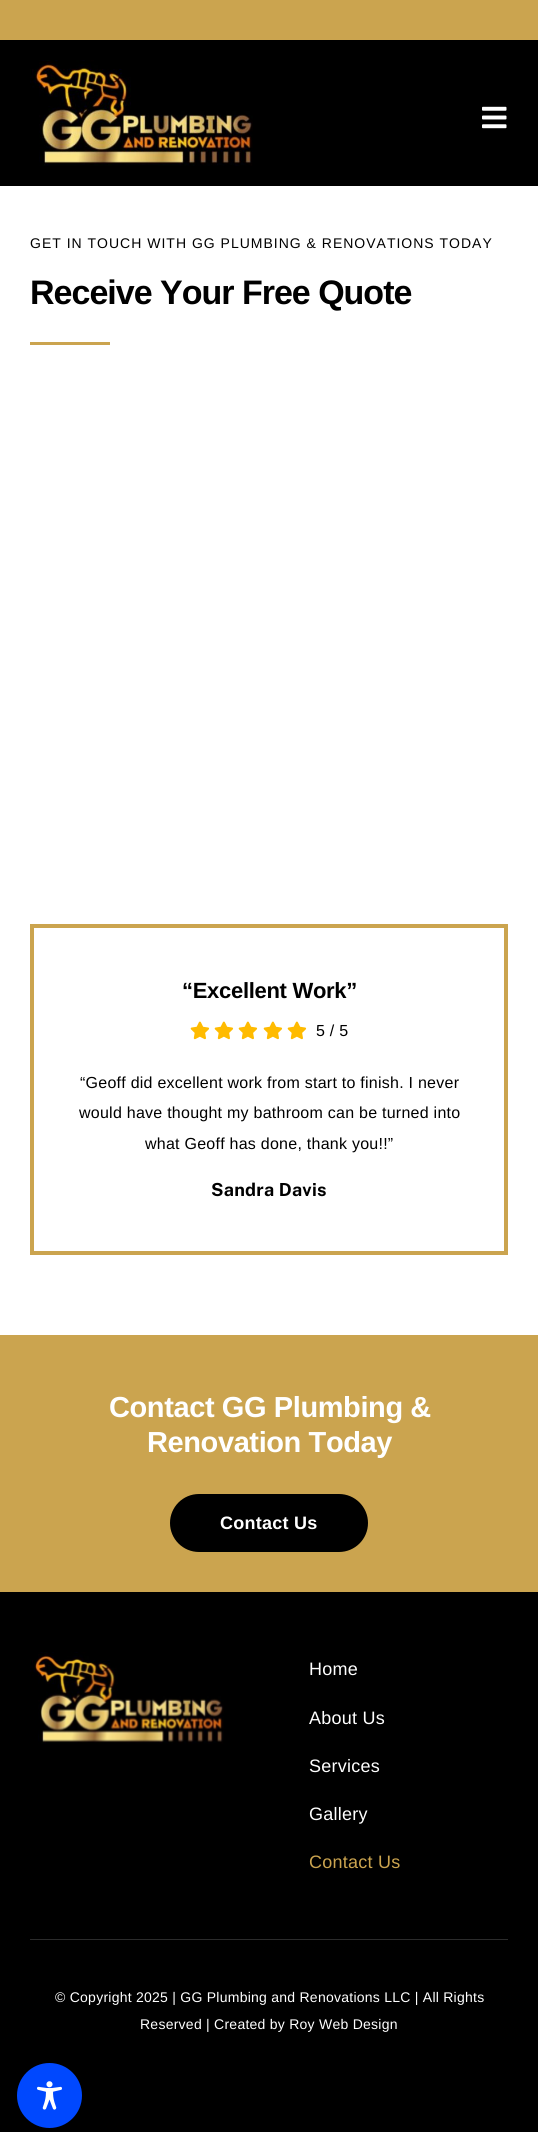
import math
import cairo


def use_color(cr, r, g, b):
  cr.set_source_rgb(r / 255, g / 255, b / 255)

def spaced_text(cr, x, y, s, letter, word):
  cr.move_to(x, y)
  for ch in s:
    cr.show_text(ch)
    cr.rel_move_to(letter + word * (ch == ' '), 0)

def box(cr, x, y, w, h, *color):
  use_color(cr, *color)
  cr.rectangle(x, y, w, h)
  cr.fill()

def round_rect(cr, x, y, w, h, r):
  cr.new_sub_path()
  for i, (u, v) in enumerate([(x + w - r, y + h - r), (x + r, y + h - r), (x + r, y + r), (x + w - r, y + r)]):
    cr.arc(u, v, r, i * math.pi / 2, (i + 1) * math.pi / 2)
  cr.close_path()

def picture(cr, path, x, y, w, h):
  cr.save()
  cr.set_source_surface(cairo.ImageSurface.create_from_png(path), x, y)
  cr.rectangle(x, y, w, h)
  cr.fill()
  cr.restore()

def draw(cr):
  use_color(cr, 255, 255, 255)
  cr.paint()
  box(cr, 0, 0, 538, 40, 203, 164, 79)
  box(cr, 0, 40, 538, 146, 0, 0, 0)
  picture(cr, "img_01.png", 30, 60, 223, 106)
  picture(cr, "img_02.png", 482, 106, 25, 23)
  box(cr, 30, 342, 80, 3, 203, 164, 79)
  cr.rectangle(32, 926, 474, 327)
  cr.set_line_width(4)
  cr.stroke()
  picture(cr, "img_03.png", 190, 1021, 20, 19)
  picture(cr, "img_03.png", 214, 1021, 20, 19)
  picture(cr, "img_03.png", 238, 1021, 20, 19)
  picture(cr, "img_03.png", 263, 1021, 20, 19)
  picture(cr, "img_03.png", 287, 1021, 20, 19)
  box(cr, 0, 1335, 538, 257, 203, 164, 79)
  use_color(cr, 0, 0, 0)
  round_rect(cr, 170, 1494, 198, 58, 29)
  cr.fill()
  box(cr, 0, 1592, 538, 540, 0, 0, 0)
  picture(cr, "img_04.png", 30, 1652, 194, 92)
  box(cr, 30, 1939, 478, 1, 43, 43, 43)
  use_color(cr, 0, 72, 254)
  cr.arc(49.5, 2095.5, 32.5, 0, 2 * math.pi)
  cr.fill()
  picture(cr, "img_05.png", 37, 2081, 25, 29)
  cr.select_font_face("Liberation Sans")
  cr.set_font_size(14)
  use_color(cr, 0, 0, 0)
  spaced_text(cr, 30, 248, "GET IN TOUCH WITH GG PLUMBING & RENOVATIONS TODAY", 1, 0)
  cr.select_font_face("Liberation Sans", cairo.FONT_SLANT_NORMAL, cairo.FONT_WEIGHT_BOLD)
  cr.set_font_size(34)
  spaced_text(cr, 30, 304, "Receive Your Free Quote", -1, 0)
  cr.set_font_size(22)
  spaced_text(cr, 182, 998, "“Excellent Work”", -0.3, 0)
  cr.select_font_face("Liberation Sans")
  cr.set_font_size(16)
  spaced_text(cr, 316, 1036, "5 / 5", 0.25, 0)
  spaced_text(cr, 80, 1088, "“Geoff did excellent work from start to finish. I never", 0.25, 0)
  spaced_text(cr, 79, 1118, "would have thought my bathroom can be turned into", 0.25, 0)
  spaced_text(cr, 145, 1149, "what Geoff has done, thank you!!”", 0.25, 0)
  cr.select_font_face("Public Sans Thin")
  cr.set_font_size(18)
  spaced_text(cr, 211, 1196, "Sandra Davis", 0.25, 0)
  cr.select_font_face("Liberation Sans", cairo.FONT_SLANT_NORMAL, cairo.FONT_WEIGHT_BOLD)
  cr.set_font_size(29)
  use_color(cr, 255, 255, 255)
  spaced_text(cr, 109, 1417, "Contact GG Plumbing &", -0.4, 0)
  spaced_text(cr, 147, 1452, "Renovation Today", -0.4, 0)
  cr.set_font_size(18)
  spaced_text(cr, 220, 1529, "Contact Us", 0.25, 0)
  cr.select_font_face("Liberation Sans")
  spaced_text(cr, 309, 1675, "Home", 0.25, 0)
  spaced_text(cr, 309, 1724, "About Us", 0.25, 0)
  spaced_text(cr, 309, 1772, "Services", 0.25, 0)
  spaced_text(cr, 309, 1820, "Gallery", 0.25, 0)
  use_color(cr, 203, 164, 79)
  spaced_text(cr, 309, 1868, "Contact Us", 0.25, 0)
  cr.set_font_size(14)
  use_color(cr, 255, 255, 255)
  spaced_text(cr, 55, 2002, "© Copyright 2025 | GG Plumbing and Renovations LLC | All Rights", 0.25, 0)
  spaced_text(cr, 140, 2029, "Reserved | Created by Roy Web Design", 0.25, 0)


surface = cairo.ImageSurface(cairo.FORMAT_RGB24, 538, 2145)
cr = cairo.Context(surface)
options = cairo.FontOptions()
options.set_hint_metrics(cairo.HINT_METRICS_OFF)
options.set_hint_style(cairo.HINT_STYLE_NONE)
cr.set_font_options(options)
cr.set_miter_limit(4)
draw(cr)
surface.write_to_png("out.png")
